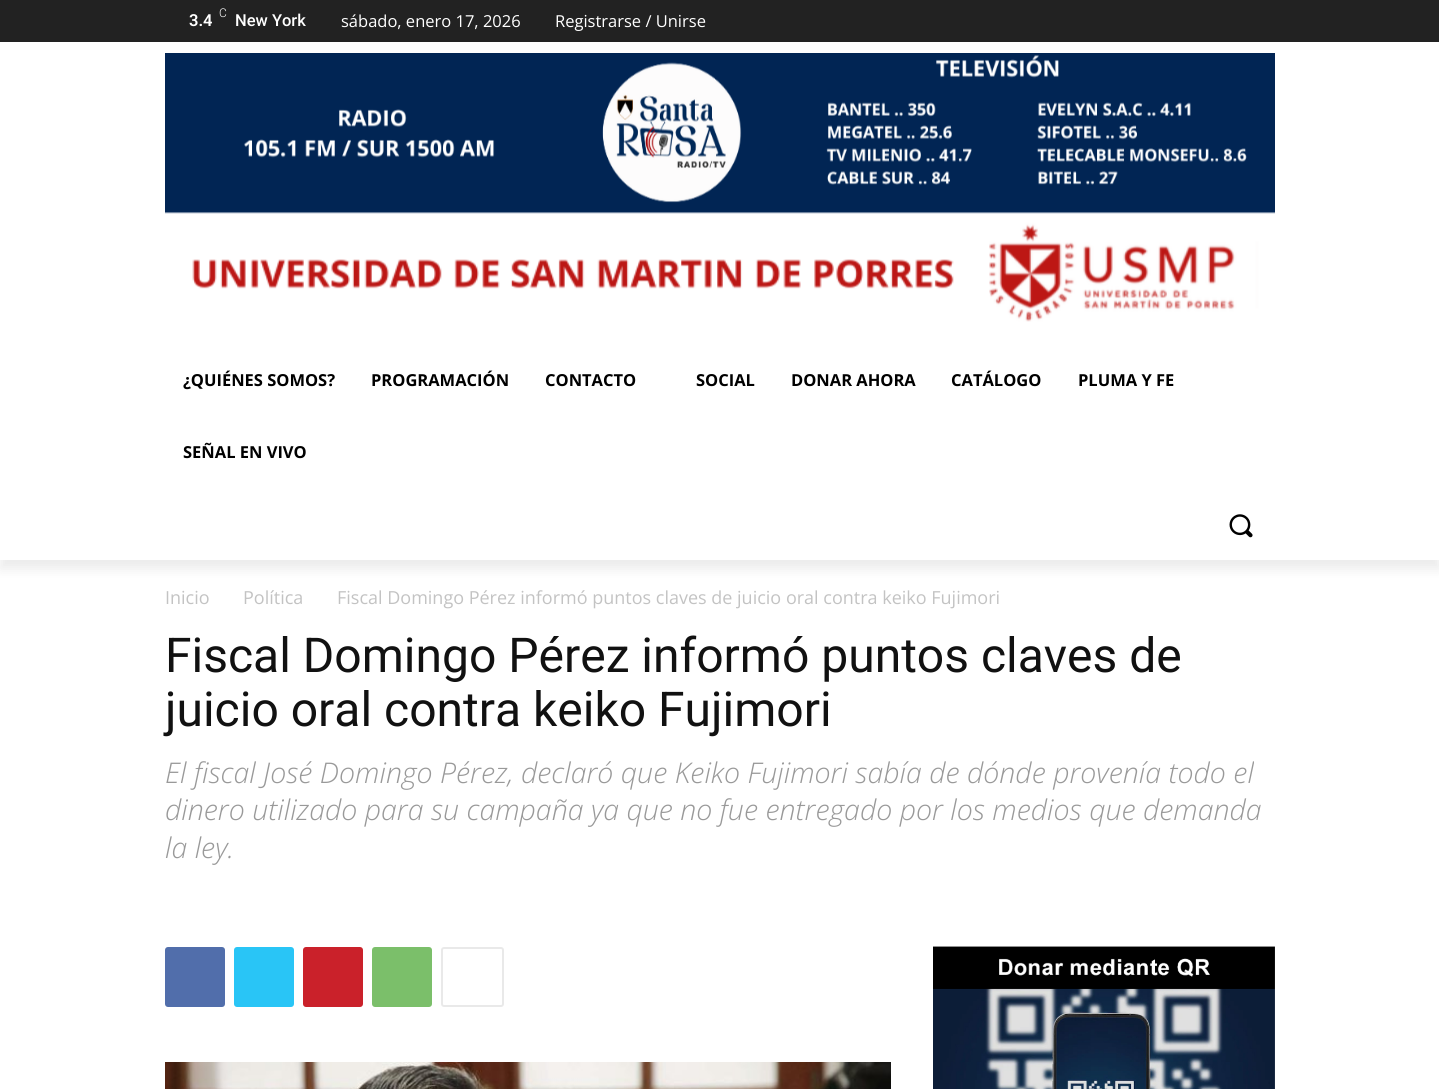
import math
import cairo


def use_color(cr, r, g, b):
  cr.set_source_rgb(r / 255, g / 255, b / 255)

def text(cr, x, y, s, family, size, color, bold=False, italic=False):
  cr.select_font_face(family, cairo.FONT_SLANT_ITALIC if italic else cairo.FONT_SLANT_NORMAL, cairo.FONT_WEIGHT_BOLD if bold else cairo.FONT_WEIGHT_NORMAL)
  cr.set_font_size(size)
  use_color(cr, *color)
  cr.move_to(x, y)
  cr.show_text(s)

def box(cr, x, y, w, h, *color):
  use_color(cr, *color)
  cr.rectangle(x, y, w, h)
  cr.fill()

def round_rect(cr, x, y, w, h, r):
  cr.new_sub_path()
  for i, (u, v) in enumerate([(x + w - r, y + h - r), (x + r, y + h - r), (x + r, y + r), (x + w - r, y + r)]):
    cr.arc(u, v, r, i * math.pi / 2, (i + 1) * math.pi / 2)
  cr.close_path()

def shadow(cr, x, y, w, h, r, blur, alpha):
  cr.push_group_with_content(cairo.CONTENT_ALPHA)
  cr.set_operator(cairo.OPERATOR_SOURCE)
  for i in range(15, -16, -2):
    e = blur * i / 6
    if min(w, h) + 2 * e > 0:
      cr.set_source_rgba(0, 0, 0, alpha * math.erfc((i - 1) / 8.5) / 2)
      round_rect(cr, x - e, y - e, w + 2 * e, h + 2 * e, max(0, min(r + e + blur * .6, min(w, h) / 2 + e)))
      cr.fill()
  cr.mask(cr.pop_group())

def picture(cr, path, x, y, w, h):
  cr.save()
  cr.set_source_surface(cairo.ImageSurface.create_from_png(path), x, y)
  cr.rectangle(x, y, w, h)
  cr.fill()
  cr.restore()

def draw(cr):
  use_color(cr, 255, 255, 255)
  cr.paint()
  box(cr, 0, 0, 1439, 42, 34, 34, 34)
  picture(cr, "img_01.png", 165, 53, 1110, 161)
  picture(cr, "img_02.png", 165, 212, 1110, 110)
  cr.save()
  cr.set_fill_rule(cairo.FILL_RULE_EVEN_ODD)
  cr.new_path()
  cr.move_to(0, 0)
  cr.line_to(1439, 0)
  cr.line_to(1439, 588)
  cr.line_to(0, 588)
  cr.close_path()
  cr.move_to(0, 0)
  cr.line_to(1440, 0)
  cr.line_to(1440, 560)
  cr.line_to(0, 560)
  cr.close_path()
  cr.clip()
  use_color(cr, 0, 0, 0)
  shadow(cr, 0, 9, 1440, 560, 0, 6, 0.08)
  cr.restore()
  picture(cr, "img_03.png", 1229, 514, 24, 24)
  use_color(cr, 81, 110, 171)
  round_rect(cr, 165, 947, 60, 60, 3)
  cr.fill()
  use_color(cr, 41, 197, 246)
  round_rect(cr, 234, 947, 60, 60, 3)
  cr.fill()
  use_color(cr, 202, 33, 42)
  round_rect(cr, 303, 947, 60, 60, 3)
  cr.fill()
  use_color(cr, 123, 191, 106)
  round_rect(cr, 372, 947, 60, 60, 3)
  cr.fill()
  round_rect(cr, 442, 948, 61, 58, 2)
  use_color(cr, 233, 233, 233)
  cr.stroke()
  picture(cr, "img_04.png", 165, 1062, 726, 27)
  picture(cr, "img_05.png", 933, 946, 342, 143)
  text(cr, 219, 17, "C", "Roboto Light", 12, (255, 255, 255))
  text(cr, 189, 26, "3.4", "Roboto SemiBold", 16.5, (255, 255, 255))
  text(cr, 235, 26, "New York", "Roboto Medium", 16.5, (255, 255, 255))
  text(cr, 341, 27, "sábado, enero 17, 2026", "Open Sans", 16.5, (255, 255, 255))
  text(cr, 555, 27, "Registrarse / Unirse", "Open Sans", 16.5, (255, 255, 255))
  text(cr, 183, 386, "¿QUIÉNES SOMOS?", "Open Sans", 16.5, (0, 0, 0), bold=True)
  text(cr, 371, 386, "PROGRAMACIÓN", "Open Sans", 16.5, (0, 0, 0), bold=True)
  text(cr, 545, 386, "CONTACTO", "Open Sans", 16.5, (0, 0, 0), bold=True)
  text(cr, 696, 386, "SOCIAL", "Open Sans", 16.5, (0, 0, 0), bold=True)
  text(cr, 791, 386, "DONAR AHORA", "Open Sans", 16.5, (0, 0, 0), bold=True)
  text(cr, 951, 386, "CATÁLOGO", "Open Sans", 16.5, (0, 0, 0), bold=True)
  text(cr, 1078, 386, "PLUMA Y FE", "Open Sans", 16.5, (0, 0, 0), bold=True)
  text(cr, 183, 458, "SEÑAL EN VIVO", "Open Sans", 16.5, (0, 0, 0), bold=True)
  text(cr, 165, 604, "Inicio", "Open Sans", 18, (195, 195, 195))
  text(cr, 243, 604, "Política", "Open Sans", 18, (195, 195, 195))
  text(cr, 337, 604, "Fiscal Domingo Pérez informó puntos claves de juicio oral contra keiko Fujimori", "Open Sans", 18, (195, 195, 195))
  text(cr, 165, 672, "Fiscal Domingo Pérez informó puntos claves de", "Roboto", 48, (17, 17, 17))
  text(cr, 165, 726, "juicio oral contra keiko Fujimori", "Roboto", 48, (17, 17, 17))
  text(cr, 165, 783, "El fiscal José Domingo Pérez, declaró que Keiko Fujimori sabía de dónde provenía todo el", "Open Sans Light", 28.5, (153, 153, 153), italic=True)
  text(cr, 165, 820, "dinero utilizado para su campaña ya que no fue entregado por los medios que demanda", "Open Sans Light", 28.5, (153, 153, 153), italic=True)
  text(cr, 165, 858, "la ley.", "Open Sans Light", 28.5, (153, 153, 153), italic=True)


surface = cairo.ImageSurface(cairo.FORMAT_RGB24, 1439, 1089)
cr = cairo.Context(surface)
options = cairo.FontOptions()
options.set_hint_metrics(cairo.HINT_METRICS_OFF)
options.set_hint_style(cairo.HINT_STYLE_NONE)
cr.set_font_options(options)
cr.set_miter_limit(4)
draw(cr)
surface.write_to_png("out.png")
